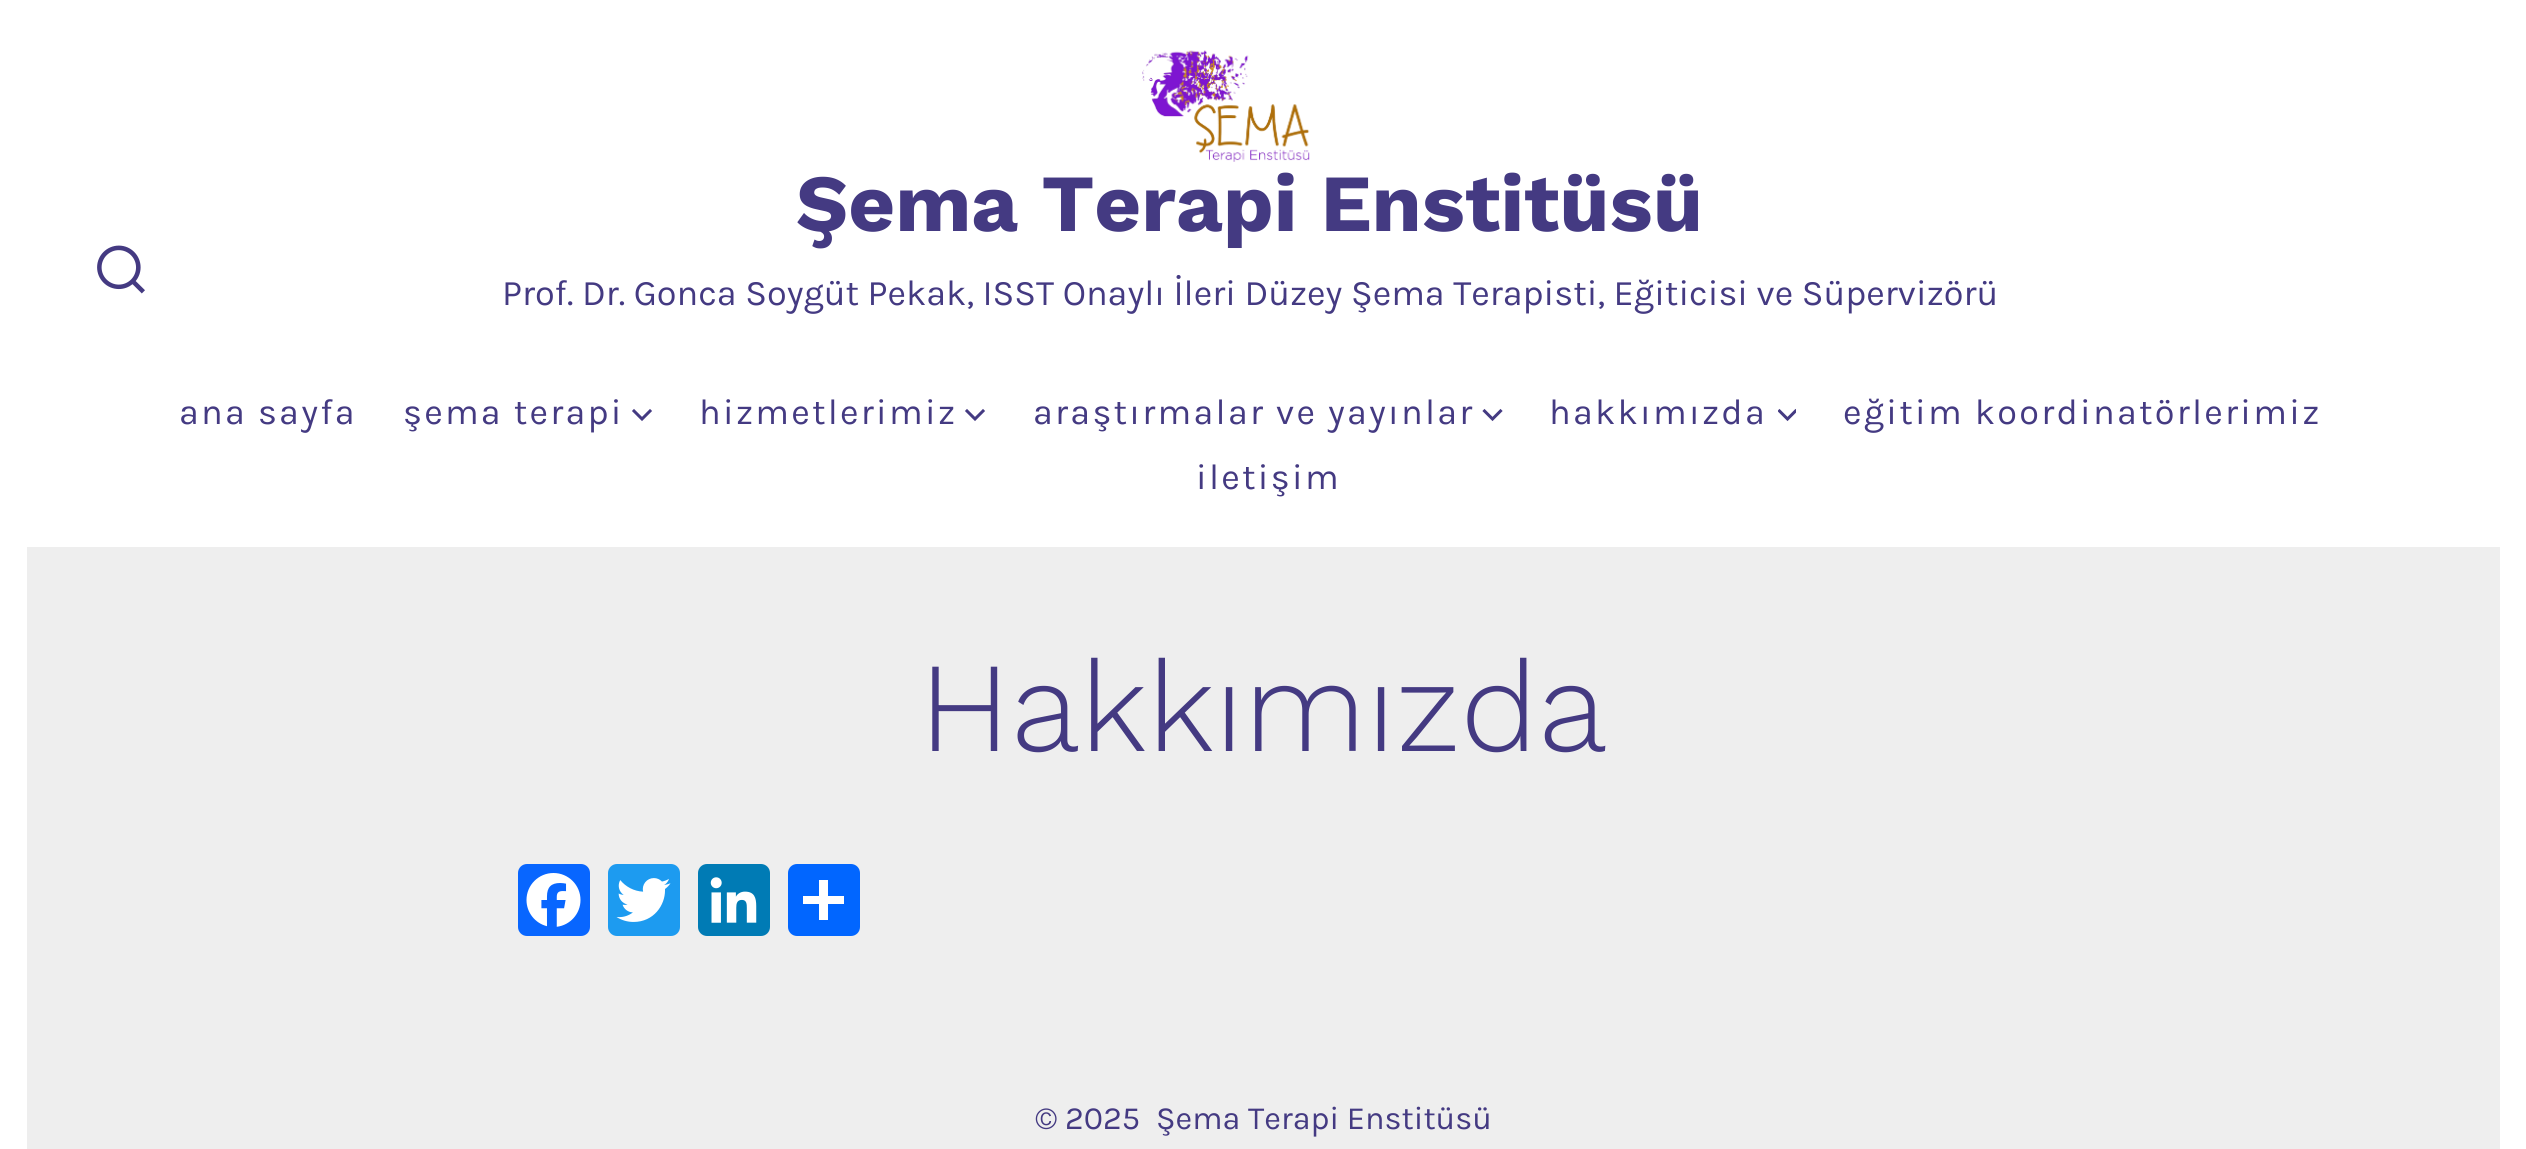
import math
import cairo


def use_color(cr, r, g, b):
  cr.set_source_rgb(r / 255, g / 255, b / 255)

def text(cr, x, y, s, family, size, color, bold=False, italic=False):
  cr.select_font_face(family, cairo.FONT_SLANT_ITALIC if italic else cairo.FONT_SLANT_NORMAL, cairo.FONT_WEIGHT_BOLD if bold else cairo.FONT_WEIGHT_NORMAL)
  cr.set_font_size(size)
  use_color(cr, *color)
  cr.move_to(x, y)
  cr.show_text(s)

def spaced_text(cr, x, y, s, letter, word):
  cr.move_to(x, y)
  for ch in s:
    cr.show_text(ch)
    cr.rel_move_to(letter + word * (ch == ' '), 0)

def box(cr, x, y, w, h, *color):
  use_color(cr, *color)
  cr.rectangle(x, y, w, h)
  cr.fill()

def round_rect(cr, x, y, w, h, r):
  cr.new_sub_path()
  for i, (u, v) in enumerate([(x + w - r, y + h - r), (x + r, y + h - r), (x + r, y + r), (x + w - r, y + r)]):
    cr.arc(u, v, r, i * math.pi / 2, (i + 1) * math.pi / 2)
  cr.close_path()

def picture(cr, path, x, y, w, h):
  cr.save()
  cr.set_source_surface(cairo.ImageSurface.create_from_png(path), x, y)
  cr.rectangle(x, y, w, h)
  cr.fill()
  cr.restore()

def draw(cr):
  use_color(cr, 238, 238, 238)
  cr.paint()
  box(cr, 2500, 0, 26, 1149, 255, 255, 255)
  box(cr, 0, 0, 27, 1149, 255, 255, 255)
  box(cr, 27, 0, 2473, 547, 255, 255, 255)
  picture(cr, "img_01.png", 97, 245, 48, 49)
  picture(cr, "img_02.png", 1142, 50, 168, 112)
  cr.new_path()
  cr.move_to(634, 411)
  cr.line_to(642, 419)
  cr.line_to(650, 411)
  use_color(cr, 68, 58, 130)
  cr.set_line_width(3)
  cr.set_line_cap(cairo.LINE_CAP_SQUARE)
  cr.stroke()
  cr.new_path()
  cr.move_to(967, 411)
  cr.line_to(975, 419)
  cr.line_to(983, 411)
  cr.stroke()
  cr.new_path()
  cr.move_to(1484.5, 411)
  cr.line_to(1492.5, 419)
  cr.line_to(1500.5, 411)
  cr.stroke()
  cr.save()
  cr.rectangle(1778, 405, 18, 18)
  cr.clip()
  cr.new_path()
  cr.move_to(1779.5, 411)
  cr.line_to(1787.5, 419)
  cr.line_to(1795.5, 411)
  cr.stroke()
  cr.restore()
  use_color(cr, 8, 102, 255)
  round_rect(cr, 518, 864, 72, 72, 9)
  cr.fill()
  picture(cr, "img_03.png", 526, 873, 55, 54)
  use_color(cr, 29, 155, 240)
  round_rect(cr, 608, 864, 72, 72, 9)
  cr.fill()
  picture(cr, "img_04.png", 616, 878, 55, 44)
  use_color(cr, 0, 123, 181)
  round_rect(cr, 698, 864, 72, 72, 9)
  cr.fill()
  picture(cr, "img_05.png", 710, 877, 47, 46)
  use_color(cr, 1, 102, 255)
  round_rect(cr, 788, 864, 72, 72, 9)
  cr.fill()
  box(cr, 819, 880, 9, 40, 255, 255, 255)
  box(cr, 803, 896, 41, 8, 255, 255, 255)
  text(cr, 796, 231, "Şema Terapi Enstitüsü", "Work Sans", 81, (68, 58, 130), bold=True)
  text(cr, 502, 305, "Prof. Dr. Gonca Soygüt Pekak, ISST Onaylı İleri Düzey Şema Terapisti, Eğiticisi ve Süpervizörü", "Karla", 36, (68, 58, 130))
  spaced_text(cr, 179, 424, "ana sayfa", 2.25, 0)
  spaced_text(cr, 403, 424, "şema terapi", 2.25, 0)
  spaced_text(cr, 699, 424, "hizmetlerimiz", 2.25, 0)
  spaced_text(cr, 1033, 424, "araştırmalar ve yayınlar", 2.25, 0)
  spaced_text(cr, 1549, 424, "hakkımızda", 2.25, 0)
  spaced_text(cr, 1843, 424, "eğitim koordinatörlerimiz", 2.25, 0)
  spaced_text(cr, 1196, 489, "iletişim", 2.25, 0)
  text(cr, 919, 751, "Hakkımızda", "Work Sans Light", 127.75, (68, 58, 130))
  text(cr, 1035, 1129, "© 2025", "Karla", 32.4, (68, 58, 130))
  text(cr, 1156, 1129, "Şema Terapi Enstitüsü", "Karla", 32.4, (68, 58, 130))


surface = cairo.ImageSurface(cairo.FORMAT_RGB24, 2526, 1149)
cr = cairo.Context(surface)
options = cairo.FontOptions()
options.set_hint_metrics(cairo.HINT_METRICS_OFF)
options.set_hint_style(cairo.HINT_STYLE_NONE)
cr.set_font_options(options)
cr.set_miter_limit(4)
draw(cr)
surface.write_to_png("out.png")
